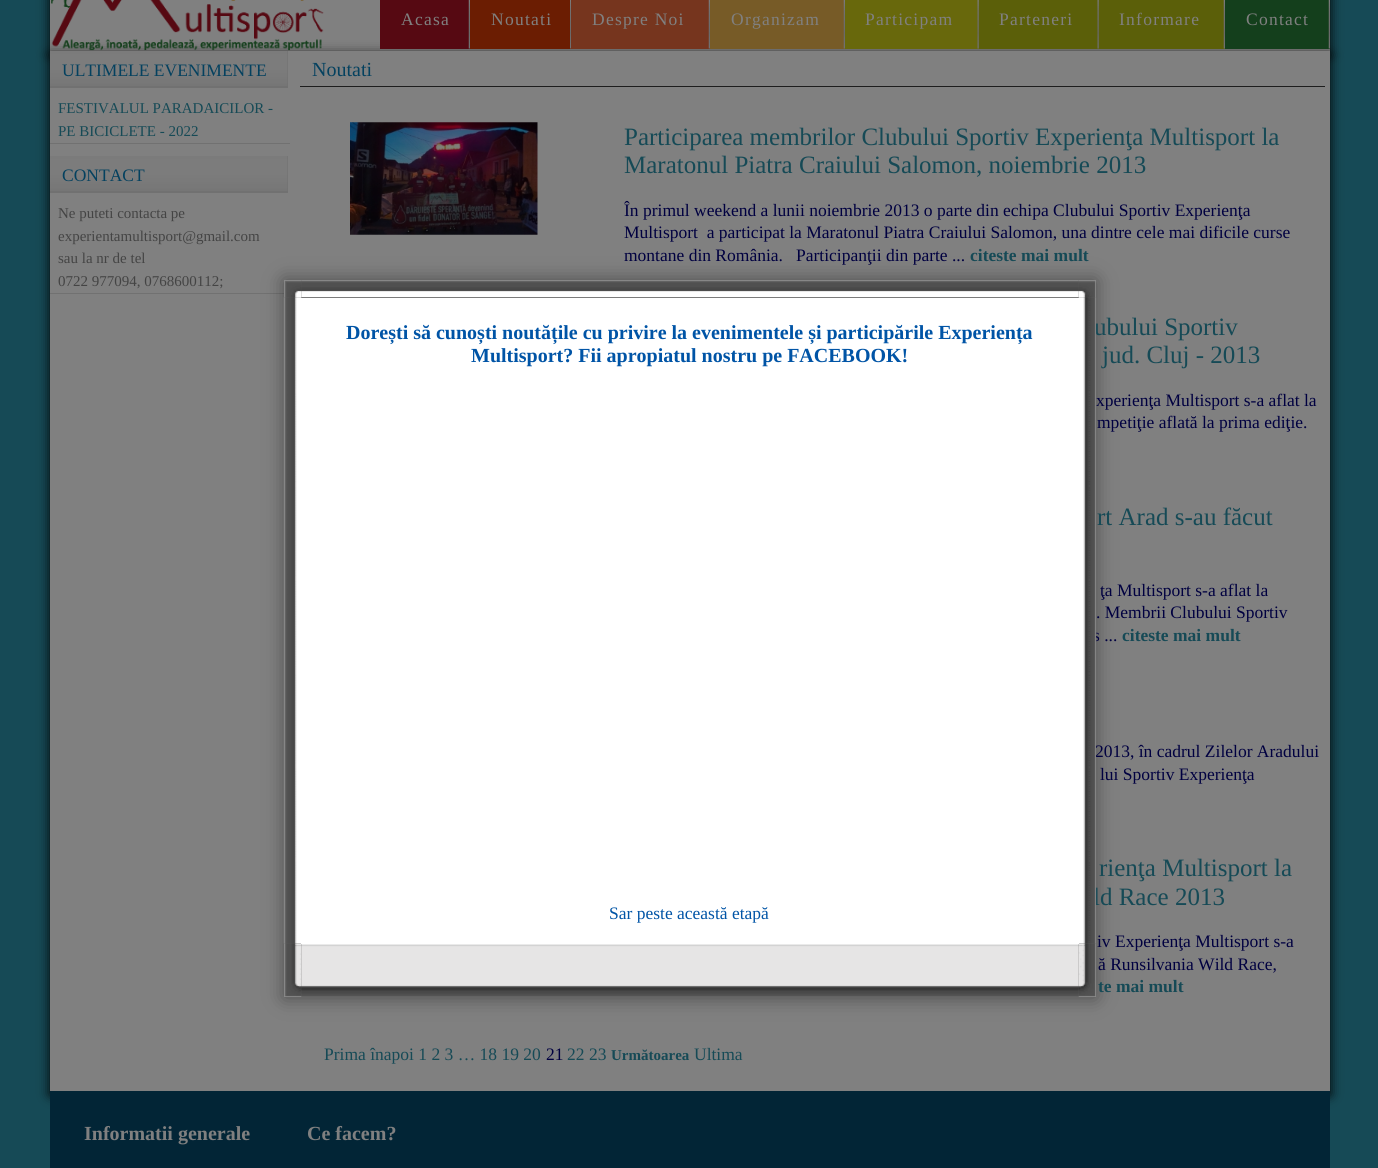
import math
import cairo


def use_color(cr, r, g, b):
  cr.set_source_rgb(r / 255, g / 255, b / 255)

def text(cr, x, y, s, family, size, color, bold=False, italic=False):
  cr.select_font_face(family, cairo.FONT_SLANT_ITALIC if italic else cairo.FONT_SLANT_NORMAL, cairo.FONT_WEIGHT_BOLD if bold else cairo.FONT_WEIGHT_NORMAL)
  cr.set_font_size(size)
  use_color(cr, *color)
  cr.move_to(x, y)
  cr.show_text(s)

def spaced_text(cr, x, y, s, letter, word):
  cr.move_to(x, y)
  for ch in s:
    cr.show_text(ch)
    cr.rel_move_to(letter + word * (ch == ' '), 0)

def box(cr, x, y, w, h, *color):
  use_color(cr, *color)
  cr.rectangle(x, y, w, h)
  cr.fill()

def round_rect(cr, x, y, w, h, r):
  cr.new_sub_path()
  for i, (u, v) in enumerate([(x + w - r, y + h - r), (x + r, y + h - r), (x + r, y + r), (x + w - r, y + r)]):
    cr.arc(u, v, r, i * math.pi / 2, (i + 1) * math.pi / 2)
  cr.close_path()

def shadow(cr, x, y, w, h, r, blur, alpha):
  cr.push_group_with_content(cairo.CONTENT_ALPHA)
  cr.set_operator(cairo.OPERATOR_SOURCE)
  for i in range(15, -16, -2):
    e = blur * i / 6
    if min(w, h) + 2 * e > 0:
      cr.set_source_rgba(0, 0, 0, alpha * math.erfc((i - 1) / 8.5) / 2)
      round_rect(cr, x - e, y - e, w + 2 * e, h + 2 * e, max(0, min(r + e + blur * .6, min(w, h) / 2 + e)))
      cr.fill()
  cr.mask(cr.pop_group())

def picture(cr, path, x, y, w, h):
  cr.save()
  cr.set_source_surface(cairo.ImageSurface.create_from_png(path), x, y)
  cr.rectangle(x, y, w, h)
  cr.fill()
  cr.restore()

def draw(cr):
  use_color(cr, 22, 74, 86)
  cr.paint()
  use_color(cr, 0, 0, 0)
  shadow(cr, 50, -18, 1280, 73, 0, 6, 1)
  box(cr, 50, 0, 1280, 51, 128, 128, 128)
  use_color(cr, 0, 0, 0)
  shadow(cr, 50, 55, 1280, 1040, 0, 6, 1)
  picture(cr, "img_01.png", 51, 0, 273, 51)
  box(cr, 380, 0, 90, 49, 86, 9, 18)
  picture(cr, "img_02.png", 468, 0, 2, 49)
  box(cr, 470, 0, 101, 49, 107, 29, 2)
  picture(cr, "img_03.png", 570, 0, 1, 49)
  box(cr, 571, 0, 139, 49, 118, 53, 30)
  picture(cr, "img_04.png", 708, 0, 2, 49)
  box(cr, 710, 0, 135, 49, 119, 91, 39)
  picture(cr, "img_05.png", 843, 0, 2, 49)
  box(cr, 845, 0, 134, 49, 104, 104, 12)
  picture(cr, "img_06.png", 977, 0, 2, 49)
  box(cr, 979, 0, 246, 49, 91, 95, 9)
  picture(cr, "img_07.png", 1097, 0, 2, 49)
  picture(cr, "img_08.png", 1223, 0, 2, 49)
  box(cr, 1225, 0, 105, 49, 20, 63, 28)
  picture(cr, "img_09.png", 1328, 0, 2, 49)
  box(cr, 50, 51, 1280, 1040, 128, 128, 128)
  box(cr, 50, 51, 238, 37, 113, 113, 113)
  picture(cr, "img_10.png", 50, 51, 238, 35)
  box(cr, 50, 143, 240, 1, 113, 113, 113)
  box(cr, 50, 156, 238, 37, 113, 113, 113)
  picture(cr, "img_10.png", 50, 156, 238, 35)
  box(cr, 50, 293, 240, 1, 113, 113, 113)
  box(cr, 300, 86, 1025, 1, 29, 29, 29)
  picture(cr, "img_11.png", 350, 122, 188, 113)
  use_color(cr, 0, 0, 0)
  shadow(cr, 284, 280, 812, 718, 0, 9.5, 0.4)
  picture(cr, "img_12.png", 284, 280, 18, 18)
  picture(cr, "img_13.png", 301, 280, 778, 18)
  picture(cr, "img_14.png", 1078, 280, 18, 18)
  picture(cr, "img_15.png", 283, 297, 19, 647)
  picture(cr, "img_17.png", 284, 943, 18, 54)
  picture(cr, "img_18.png", 301, 944, 778, 52)
  box(cr, 50, 1091, 1280, 77, 2, 37, 54)
  cr.select_font_face("Liberation Serif")
  cr.set_font_size(17.5)
  use_color(cr, 128, 128, 128)
  spaced_text(cr, 401, 25, "Acasa", 1.25, 0)
  spaced_text(cr, 491, 25, "Noutati", 1.25, 0)
  spaced_text(cr, 592, 25, "Despre Noi", 1.25, 0)
  spaced_text(cr, 731, 25, "Organizam", 1.25, 0)
  spaced_text(cr, 865, 25, "Participam", 1.25, 0)
  spaced_text(cr, 999, 25, "Parteneri", 1.25, 0)
  spaced_text(cr, 1119, 25, "Informare", 1.25, 0)
  spaced_text(cr, 1246, 25, "Contact", 1.25, 0)
  text(cr, 62, 76, "ULTIMELE EVENIMENTE", "Liberation Serif", 17.5, (4, 65, 95))
  text(cr, 58, 113, "FESTIVALUL PARADAICILOR -", "Liberation Serif", 15, (22, 74, 86))
  text(cr, 58, 136, "PE BICICLETE - 2022", "Liberation Serif", 15, (22, 74, 86))
  text(cr, 62, 181, "CONTACT", "Liberation Serif", 17.5, (4, 65, 95))
  text(cr, 58, 218, "Ne puteti contacta pe", "Liberation Serif", 15, (68, 68, 68))
  text(cr, 58, 241, "experientamultisport@gmail.com", "Liberation Serif", 15, (68, 68, 68))
  text(cr, 58, 263, "sau la nr de tel", "Liberation Serif", 15, (68, 68, 68))
  text(cr, 58, 286, "0722 977094, 0768600112;", "Liberation Serif", 15, (68, 68, 68))
  text(cr, 312, 76, "Noutati", "Liberation Serif", 20, (4, 65, 95))
  text(cr, 624, 145, "Participarea membrilor Clubului Sportiv Experienţa Multisport la", "Liberation Serif", 25, (22, 74, 86))
  text(cr, 624, 173, "Maratonul Piatra Craiului Salomon, noiembrie 2013", "Liberation Serif", 25, (22, 74, 86))
  text(cr, 624, 216, "În primul weekend a lunii noiembrie 2013 o parte din echipa Clubului Sportiv Experienţa", "Liberation Serif", 17.5, (0, 0, 64))
  text(cr, 624, 238, "Multisport  a participat la Maratonul Piatra Craiului Salomon, una dintre cele mai dificile curse", "Liberation Serif", 17.5, (0, 0, 64))
  text(cr, 624, 261, "montane din România.", "Liberation Serif", 17.5, (0, 0, 64))
  text(cr, 796, 261, "Participanţii din parte ...", "Liberation Serif", 17.5, (0, 0, 64))
  text(cr, 970, 261, "citeste mai mult", "Liberation Serif", 17.5, (22, 74, 86), bold=True)
  text(cr, 1094, 335, "ubului Sportiv", "Liberation Serif", 25, (22, 74, 86))
  text(cr, 1102, 363, "jud. Cluj - 2013", "Liberation Serif", 25, (22, 74, 86))
  text(cr, 1096, 406, "xperienţa Multisport s-a aflat la", "Liberation Serif", 17.5, (0, 0, 64))
  text(cr, 1097, 428, "mpetiţie aflată la prima ediţie.", "Liberation Serif", 17.5, (0, 0, 64))
  text(cr, 1097, 525, "rt Arad s-au făcut", "Liberation Serif", 25, (22, 74, 86))
  text(cr, 1100, 596, "ţa Multisport s-a aflat la", "Liberation Serif", 17.5, (0, 0, 64))
  text(cr, 1096, 618, ". Membrii Clubului Sportiv", "Liberation Serif", 17.5, (0, 0, 64))
  text(cr, 1093, 641, "s ...", "Liberation Serif", 17.5, (0, 0, 64))
  text(cr, 1122, 641, "citeste mai mult", "Liberation Serif", 17.5, (22, 74, 86), bold=True)
  text(cr, 1095, 757, "2013, în cadrul Zilelor Aradului", "Liberation Serif", 17.5, (0, 0, 64))
  text(cr, 1100, 780, "lui Sportiv Experienţa", "Liberation Serif", 17.5, (0, 0, 64))
  text(cr, 1099, 876, "rienţa Multisport la", "Liberation Serif", 25, (22, 74, 86))
  text(cr, 1093, 905, "ld Race 2013", "Liberation Serif", 25, (22, 74, 86))
  text(cr, 1097, 947, "iv Experienţa Multisport s-a", "Liberation Serif", 17.5, (0, 0, 64))
  text(cr, 1098, 970, "ă Runsilvania Wild Race,", "Liberation Serif", 17.5, (0, 0, 64))
  text(cr, 1098, 992, "te mai mult", "Liberation Serif", 17.5, (22, 74, 86), bold=True)
  text(cr, 324, 1060, "Prima înapoi 1 2 3 … 18 19 20", "Liberation Serif", 17.5, (22, 74, 86))
  text(cr, 546, 1060, "21", "Liberation Serif", 17.5, (0, 0, 64))
  text(cr, 567, 1060, "22 23", "Liberation Serif", 17.5, (22, 74, 86))
  text(cr, 611, 1060, "Următoarea", "Liberation Serif", 15, (22, 74, 86), bold=True)
  text(cr, 694, 1060, "Ultima", "Liberation Serif", 17.5, (22, 74, 86))
  picture(cr, "img_16.png", 1078, 297, 19, 647)
  picture(cr, "img_19.png", 1078, 943, 19, 54)
  box(cr, 301, 298, 778, 646, 255, 255, 255)
  text(cr, 609, 919, "Sar peste această etapă", "Liberation Serif", 17.5, (0, 84, 166))
  text(cr, 471, 362, "Multisport? Fii apropiatul nostru pe FACEBOOK!", "Liberation Serif", 20, (0, 84, 166), bold=True)
  text(cr, 346, 339, "Dorești să cunoști noutățile cu privire la evenimentele și participările Experiența", "Liberation Serif", 20, (0, 84, 166), bold=True)
  text(cr, 84, 1140, "Informatii generale", "Liberation Serif", 20, (128, 128, 128), bold=True)
  text(cr, 307, 1140, "Ce facem?", "Liberation Serif", 20, (128, 128, 128), bold=True)


surface = cairo.ImageSurface(cairo.FORMAT_RGB24, 1378, 1168)
cr = cairo.Context(surface)
options = cairo.FontOptions()
options.set_hint_metrics(cairo.HINT_METRICS_OFF)
options.set_hint_style(cairo.HINT_STYLE_NONE)
cr.set_font_options(options)
cr.set_miter_limit(4)
draw(cr)
surface.write_to_png("out.png")
